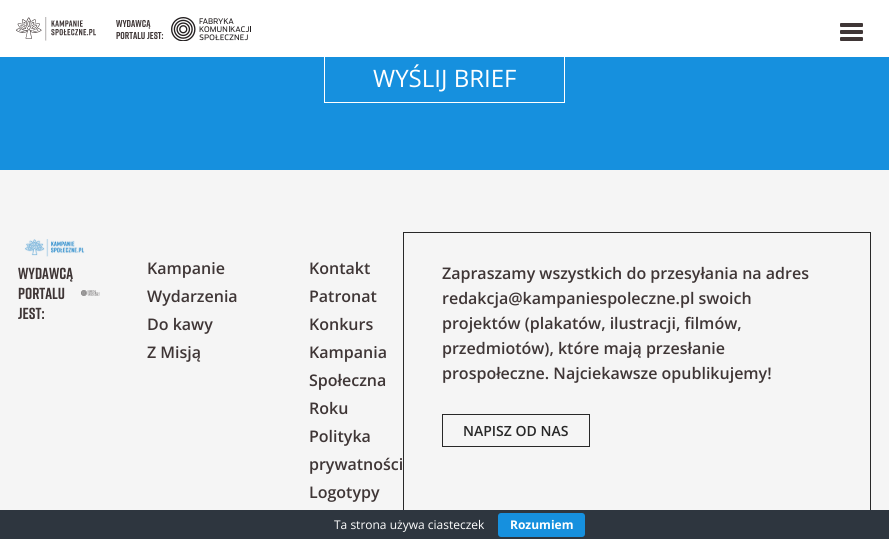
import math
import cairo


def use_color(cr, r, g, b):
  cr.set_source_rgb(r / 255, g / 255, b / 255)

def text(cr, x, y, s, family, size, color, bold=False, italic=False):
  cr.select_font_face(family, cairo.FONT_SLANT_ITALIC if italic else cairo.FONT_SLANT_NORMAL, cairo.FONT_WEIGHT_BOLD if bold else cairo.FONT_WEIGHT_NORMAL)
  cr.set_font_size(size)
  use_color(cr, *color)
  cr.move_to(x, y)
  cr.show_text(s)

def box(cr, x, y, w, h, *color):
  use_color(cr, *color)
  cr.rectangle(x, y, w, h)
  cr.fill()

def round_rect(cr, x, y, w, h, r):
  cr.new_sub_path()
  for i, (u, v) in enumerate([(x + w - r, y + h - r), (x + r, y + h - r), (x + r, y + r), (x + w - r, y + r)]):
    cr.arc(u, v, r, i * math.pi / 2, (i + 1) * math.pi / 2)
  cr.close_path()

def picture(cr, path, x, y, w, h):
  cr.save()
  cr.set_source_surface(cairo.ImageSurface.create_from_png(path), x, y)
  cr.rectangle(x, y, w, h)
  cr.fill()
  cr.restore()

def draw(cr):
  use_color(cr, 245, 245, 245)
  cr.paint()
  box(cr, 0, 0, 889, 57, 255, 255, 255)
  use_color(cr, 63, 54, 54)
  round_rect(cr, 840, 23, 23, 4, 1)
  cr.fill()
  round_rect(cr, 840, 30, 23, 4, 1)
  cr.fill()
  round_rect(cr, 840, 37, 23, 4, 1)
  cr.fill()
  picture(cr, "img_01.png", 16, 17, 80, 24)
  picture(cr, "img_02.png", 171, 17, 80, 24)
  box(cr, 0, 57, 889, 113, 22, 144, 222)
  cr.rectangle(324.5, 53.5, 240, 49)
  use_color(cr, 255, 255, 255)
  cr.set_line_width(1)
  cr.stroke()
  picture(cr, "img_03.png", 24, 239, 61, 18)
  picture(cr, "img_04.png", 81, 290, 19, 6)
  cr.rectangle(403.5, 232.5, 467, 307)
  use_color(cr, 40, 40, 40)
  cr.stroke()
  cr.rectangle(442.5, 414.5, 147, 32)
  cr.stroke()
  box(cr, 0, 510, 889, 29, 46, 54, 63)
  use_color(cr, 22, 144, 222)
  round_rect(cr, 498, 513, 87, 24, 3)
  cr.fill()
  text(cr, 116, 27, "WYDAWCĄ", "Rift", 10, (63, 54, 54), bold=True)
  text(cr, 116, 39, "PORTALU JEST:", "Rift", 10, (63, 54, 54), bold=True)
  text(cr, 373, 87, "WYŚLIJ BRIEF", "Open Sans", 24, (255, 255, 255))
  text(cr, 18, 279, "WYDAWCĄ", "Rift", 16, (63, 54, 54), bold=True)
  text(cr, 18, 299, "PORTALU", "Rift", 16, (63, 54, 54), bold=True)
  text(cr, 18, 319, "JEST:", "Rift", 16, (63, 54, 54), bold=True)
  text(cr, 147, 274, "Kampanie", "Open Sans SemiBold", 16, (63, 54, 54))
  text(cr, 147, 302, "Wydarzenia", "Open Sans SemiBold", 16, (63, 54, 54))
  text(cr, 147, 330, "Do kawy", "Open Sans SemiBold", 16, (63, 54, 54))
  text(cr, 147, 358, "Z Misją", "Open Sans SemiBold", 16, (63, 54, 54))
  text(cr, 309, 274, "Kontakt", "Open Sans SemiBold", 16, (63, 54, 54))
  text(cr, 309, 302, "Patronat", "Open Sans SemiBold", 16, (63, 54, 54))
  text(cr, 309, 330, "Konkurs", "Open Sans SemiBold", 16, (63, 54, 54))
  text(cr, 309, 358, "Kampania", "Open Sans SemiBold", 16, (63, 54, 54))
  text(cr, 309, 386, "Społeczna", "Open Sans SemiBold", 16, (63, 54, 54))
  text(cr, 309, 414, "Roku", "Open Sans SemiBold", 16, (63, 54, 54))
  text(cr, 309, 442, "Polityka", "Open Sans SemiBold", 16, (63, 54, 54))
  text(cr, 309, 470, "prywatności", "Open Sans SemiBold", 16, (63, 54, 54))
  text(cr, 309, 498, "Logotypy", "Open Sans SemiBold", 16, (63, 54, 54))
  text(cr, 442, 279, "Zapraszamy wszystkich do przesyłania na adres", "Open Sans SemiBold", 16, (63, 54, 54))
  text(cr, 442, 304, "redakcja@kampaniespoleczne.pl swoich", "Open Sans SemiBold", 16, (63, 54, 54))
  text(cr, 442, 329, "projektów (plakatów, ilustracji, filmów,", "Open Sans SemiBold", 16, (63, 54, 54))
  text(cr, 442, 354, "przedmiotów), które mają przesłanie", "Open Sans SemiBold", 16, (63, 54, 54))
  text(cr, 442, 379, "prospołeczne. Najciekawsze opublikujemy!", "Open Sans SemiBold", 16, (63, 54, 54))
  text(cr, 463, 436, "NAPISZ OD NAS", "Open Sans SemiBold", 14, (40, 40, 40))
  text(cr, 334, 529, "Ta strona używa ciasteczek", "Open Sans", 12, (255, 255, 255))
  text(cr, 510, 529, "Rozumiem", "Open Sans", 12, (255, 255, 255), bold=True)


surface = cairo.ImageSurface(cairo.FORMAT_RGB24, 889, 539)
cr = cairo.Context(surface)
options = cairo.FontOptions()
options.set_hint_metrics(cairo.HINT_METRICS_OFF)
options.set_hint_style(cairo.HINT_STYLE_NONE)
cr.set_font_options(options)
cr.set_miter_limit(4)
draw(cr)
surface.write_to_png("out.png")
